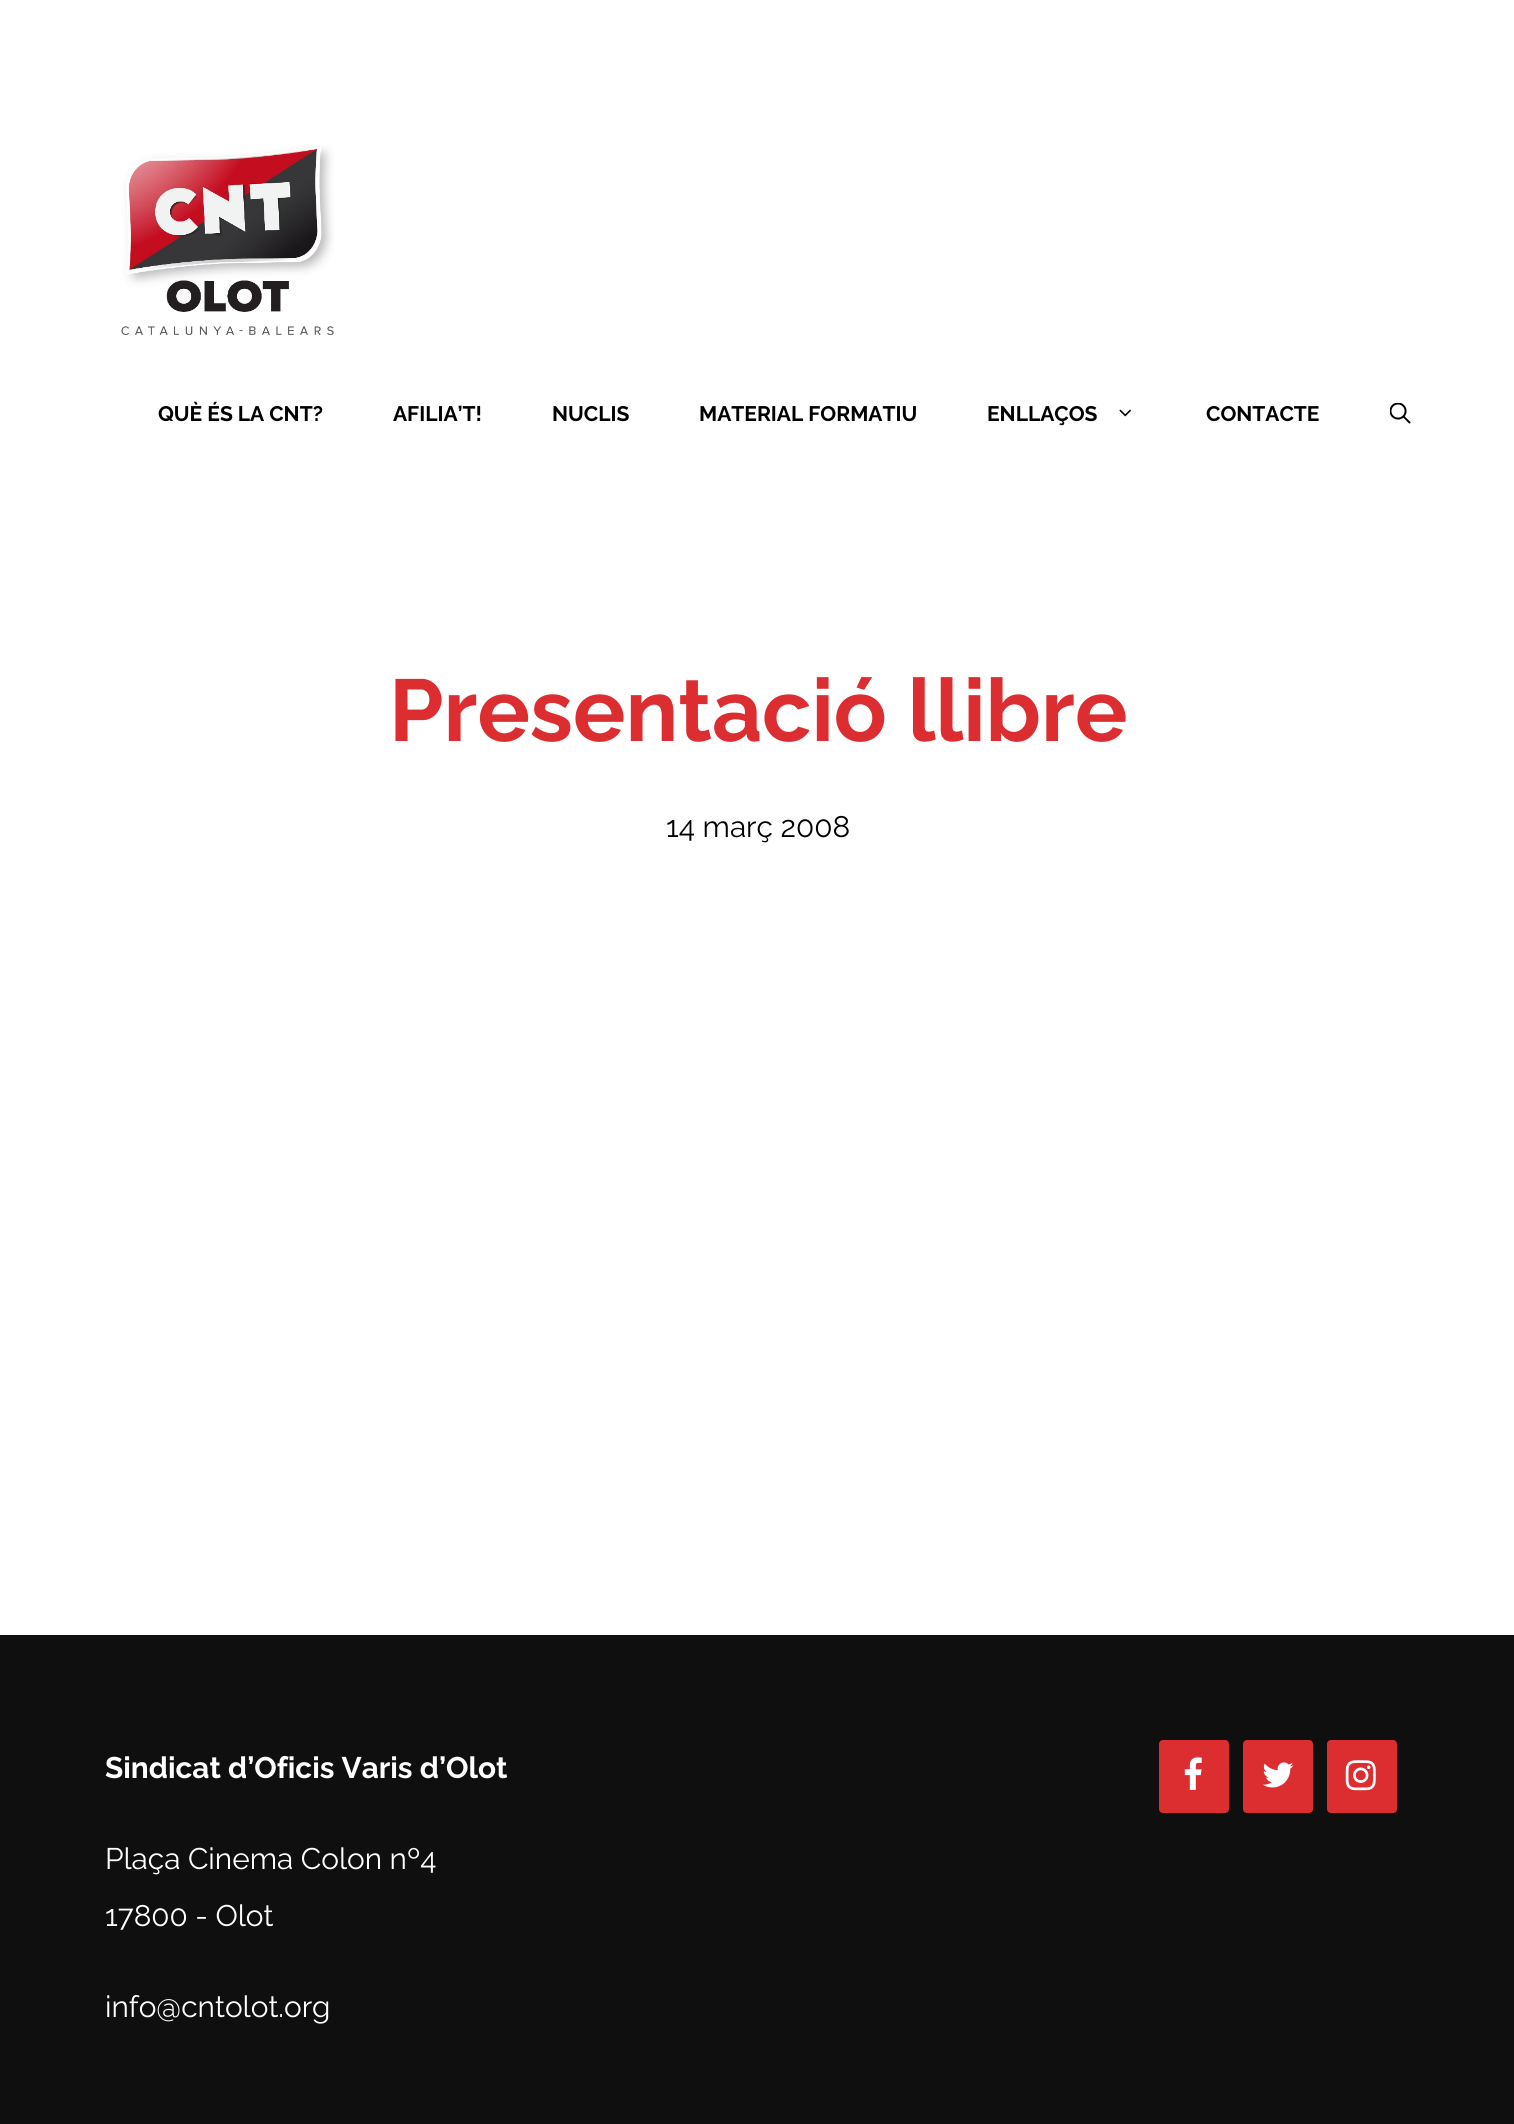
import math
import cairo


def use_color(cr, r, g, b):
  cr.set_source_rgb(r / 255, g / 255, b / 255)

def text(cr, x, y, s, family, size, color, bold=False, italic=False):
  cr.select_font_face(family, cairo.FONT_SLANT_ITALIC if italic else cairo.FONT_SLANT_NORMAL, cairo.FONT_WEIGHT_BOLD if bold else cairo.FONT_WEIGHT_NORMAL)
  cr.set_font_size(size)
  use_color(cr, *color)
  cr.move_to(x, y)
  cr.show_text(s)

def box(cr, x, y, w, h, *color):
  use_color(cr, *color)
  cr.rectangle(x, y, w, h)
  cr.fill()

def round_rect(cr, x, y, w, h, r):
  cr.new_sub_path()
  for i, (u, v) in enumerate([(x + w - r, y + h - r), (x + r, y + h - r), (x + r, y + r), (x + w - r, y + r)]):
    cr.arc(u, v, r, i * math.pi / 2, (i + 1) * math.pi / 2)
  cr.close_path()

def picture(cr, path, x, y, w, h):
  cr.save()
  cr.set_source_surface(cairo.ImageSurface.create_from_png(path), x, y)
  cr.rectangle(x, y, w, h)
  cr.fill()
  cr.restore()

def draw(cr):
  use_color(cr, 255, 255, 255)
  cr.paint()
  picture(cr, "img_01.png", 121, 145, 213, 190)
  picture(cr, "img_02.png", 1119, 409, 12, 8)
  picture(cr, "img_03.png", 1390, 403, 21, 21)
  box(cr, 0, 1635, 1514, 489, 15, 15, 15)
  use_color(cr, 220, 45, 48)
  round_rect(cr, 1159, 1740, 70, 73, 4)
  cr.fill()
  picture(cr, "img_04.png", 1184, 1757, 18, 33)
  round_rect(cr, 1243, 1740, 70, 73, 4)
  cr.fill()
  picture(cr, "img_05.png", 1262, 1762, 32, 26)
  round_rect(cr, 1327, 1740, 70, 73, 4)
  cr.fill()
  picture(cr, "img_06.png", 1345, 1760, 31, 31)
  text(cr, 158, 421, "QUÈ ÉS LA CNT?", "Raleway", 21, (0, 0, 0), bold=True)
  text(cr, 393, 421, "AFILIA’T!", "Raleway", 21, (0, 0, 0), bold=True)
  text(cr, 552, 421, "NUCLIS", "Raleway", 21, (0, 0, 0), bold=True)
  text(cr, 699, 421, "MATERIAL FORMATIU", "Raleway", 21, (0, 0, 0), bold=True)
  text(cr, 987, 421, "ENLLAÇOS", "Raleway", 21, (0, 0, 0), bold=True)
  text(cr, 1206, 421, "CONTACTE", "Raleway", 21, (0, 0, 0), bold=True)
  text(cr, 389, 741, "Presentació llibre", "Raleway", 87.5, (220, 45, 48), bold=True)
  text(cr, 666, 837, "14 març 2008", "Raleway", 29.75, (0, 0, 0))
  text(cr, 105, 1778, "Sindicat d’Oficis Varis d’Olot", "Raleway", 29.75, (255, 255, 255), bold=True)
  text(cr, 105, 1869, "Plaça Cinema Colon nº4", "Raleway", 29.75, (255, 255, 255))
  text(cr, 105, 1926, "17800 - Olot", "Raleway", 29.75, (255, 255, 255))
  text(cr, 105, 2017, "info@cntolot.org", "Raleway", 29.75, (255, 255, 255))


surface = cairo.ImageSurface(cairo.FORMAT_RGB24, 1514, 2124)
cr = cairo.Context(surface)
options = cairo.FontOptions()
options.set_hint_metrics(cairo.HINT_METRICS_OFF)
options.set_hint_style(cairo.HINT_STYLE_NONE)
cr.set_font_options(options)
cr.set_miter_limit(4)
draw(cr)
surface.write_to_png("out.png")
